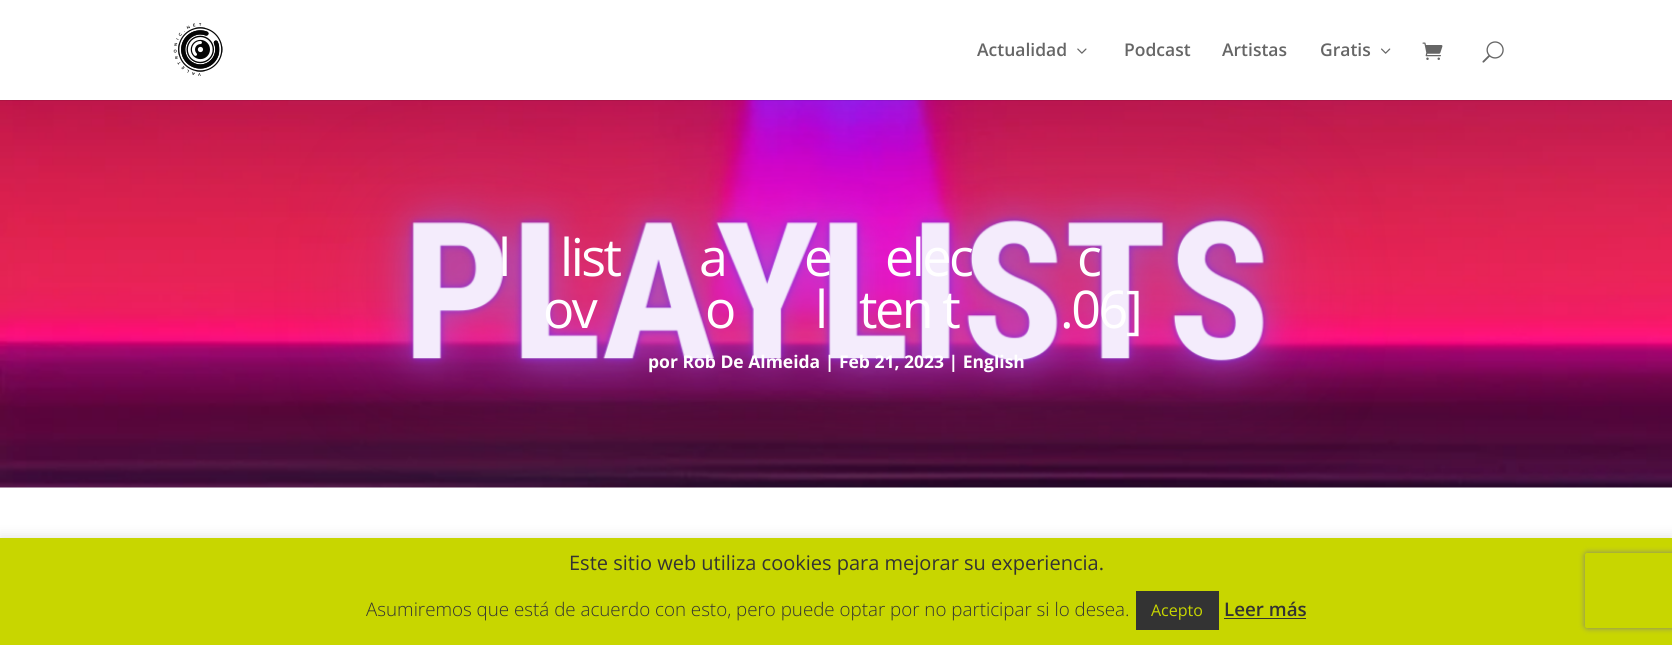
import math
import cairo


def use_color(cr, r, g, b):
  cr.set_source_rgb(r / 255, g / 255, b / 255)

def text(cr, x, y, s, family, size, color, bold=False, italic=False):
  cr.select_font_face(family, cairo.FONT_SLANT_ITALIC if italic else cairo.FONT_SLANT_NORMAL, cairo.FONT_WEIGHT_BOLD if bold else cairo.FONT_WEIGHT_NORMAL)
  cr.set_font_size(size)
  use_color(cr, *color)
  cr.move_to(x, y)
  cr.show_text(s)

def spaced_text(cr, x, y, s, letter, word):
  cr.move_to(x, y)
  for ch in s:
    cr.show_text(ch)
    cr.rel_move_to(letter + word * (ch == ' '), 0)

def box(cr, x, y, w, h, *color):
  use_color(cr, *color)
  cr.rectangle(x, y, w, h)
  cr.fill()

def round_rect(cr, x, y, w, h, r):
  cr.new_sub_path()
  for i, (u, v) in enumerate([(x + w - r, y + h - r), (x + r, y + h - r), (x + r, y + r), (x + w - r, y + r)]):
    cr.arc(u, v, r, i * math.pi / 2, (i + 1) * math.pi / 2)
  cr.close_path()

def shadow(cr, x, y, w, h, r, blur, alpha):
  cr.push_group_with_content(cairo.CONTENT_ALPHA)
  cr.set_operator(cairo.OPERATOR_SOURCE)
  for i in range(15, -16, -2):
    e = blur * i / 6
    if min(w, h) + 2 * e > 0:
      cr.set_source_rgba(0, 0, 0, alpha * math.erfc((i - 1) / 8.5) / 2)
      round_rect(cr, x - e, y - e, w + 2 * e, h + 2 * e, max(0, min(r + e + blur * .6, min(w, h) / 2 + e)))
      cr.fill()
  cr.mask(cr.pop_group())

def picture(cr, path, x, y, w, h):
  cr.save()
  cr.set_source_surface(cairo.ImageSurface.create_from_png(path), x, y)
  cr.rectangle(x, y, w, h)
  cr.fill()
  cr.restore()

def draw(cr):
  use_color(cr, 255, 255, 255)
  cr.paint()
  picture(cr, "img_06.png", 0, 100, 1672, 388)
  cr.set_source_rgba(0, 0, 0, 0.1)
  cr.new_path()
  cr.move_to(0, 100)
  cr.line_to(0, 101)
  cr.line_to(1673, 101)
  cr.line_to(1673, 1)
  cr.line_to(1672, 1)
  cr.line_to(1672, 100)
  cr.close_path()
  cr.fill()
  picture(cr, "img_01.png", 173, 23, 50, 53)
  picture(cr, "img_02.png", 1077, 48, 10, 6)
  picture(cr, "img_03.png", 1381, 48, 10, 6)
  picture(cr, "img_04.png", 1422, 42, 21, 18)
  picture(cr, "img_05.png", 1482, 41, 22, 22)
  use_color(cr, 172, 171, 171)
  shadow(cr, 0, 536, 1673, 108, 0, 6, 0.3)
  box(cr, 0, 538, 1672, 107, 200, 214, 0)
  box(cr, 1136, 591, 83, 39, 51, 51, 51)
  box(cr, 1224, 618, 82, 1, 51, 51, 51)
  cr.save()
  cr.set_fill_rule(cairo.FILL_RULE_EVEN_ODD)
  cr.new_path()
  cr.move_to(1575, 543)
  cr.line_to(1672, 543)
  cr.line_to(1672, 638)
  cr.line_to(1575, 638)
  cr.close_path()
  cr.move_to(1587.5, 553)
  cr.line_to(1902.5, 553)
  cr.curve_to(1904, 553, 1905, 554, 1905, 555.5)
  cr.line_to(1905, 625.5)
  cr.curve_to(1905, 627, 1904, 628, 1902.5, 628)
  cr.line_to(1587.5, 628)
  cr.curve_to(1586, 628, 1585, 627, 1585, 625.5)
  cr.line_to(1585, 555.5)
  cr.curve_to(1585, 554, 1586, 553, 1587.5, 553)
  cr.close_path()
  cr.clip()
  use_color(cr, 128, 128, 128)
  shadow(cr, 1585, 553, 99, 75, 2.5, 3, 1)
  cr.restore()
  text(cr, 977, 56, "Actualidad", "Open Sans SemiBold", 17.5, (102, 102, 102))
  text(cr, 1124, 56, "Podcast", "Open Sans SemiBold", 17.5, (102, 102, 102))
  text(cr, 1222, 56, "Artistas", "Open Sans SemiBold", 17.5, (102, 102, 102))
  text(cr, 1320, 56, "Gratis", "Open Sans SemiBold", 17.5, (102, 102, 102))
  cr.select_font_face("Open Sans")
  cr.set_font_size(52)
  use_color(cr, 255, 255, 255)
  spaced_text(cr, 498, 276, "l", -2.5, 0)
  spaced_text(cr, 560, 276, "list", -2.5, 0)
  spaced_text(cr, 699, 276, "a", -2.5, 0)
  spaced_text(cr, 804, 276, "e", -2.5, 0)
  spaced_text(cr, 885, 276, "elec", -2.5, 0)
  spaced_text(cr, 1077, 276, "c", -2.5, 0)
  spaced_text(cr, 543, 328, "ov", -2.5, 0)
  spaced_text(cr, 705, 328, "o", -2.5, 0)
  spaced_text(cr, 815, 328, "l", -2.5, 0)
  spaced_text(cr, 859, 328, "ten t", -2.5, 0)
  spaced_text(cr, 1060, 328, ".06]", -2.5, 0)
  text(cr, 648, 368, "por Rob De Almeida | Feb 21, 2023 | English", "Open Sans", 17.5, (255, 255, 255), bold=True)
  text(cr, 569, 570, "Este sitio web utiliza cookies para mejorar su experiencia.", "Open Sans", 20, (51, 51, 51))
  text(cr, 366, 616, "Asumiremos que está de acuerdo con esto, pero puede optar por no participar si lo desea.", "Open Sans Light", 18.75, (51, 51, 51))
  text(cr, 1151, 616, "Acepto", "Open Sans", 16, (200, 214, 0))
  text(cr, 1224, 616, "Leer más", "Open Sans SemiBold", 18.75, (51, 51, 51))


surface = cairo.ImageSurface(cairo.FORMAT_RGB24, 1672, 645)
cr = cairo.Context(surface)
options = cairo.FontOptions()
options.set_hint_metrics(cairo.HINT_METRICS_OFF)
options.set_hint_style(cairo.HINT_STYLE_NONE)
cr.set_font_options(options)
cr.set_miter_limit(4)
draw(cr)
surface.write_to_png("out.png")
